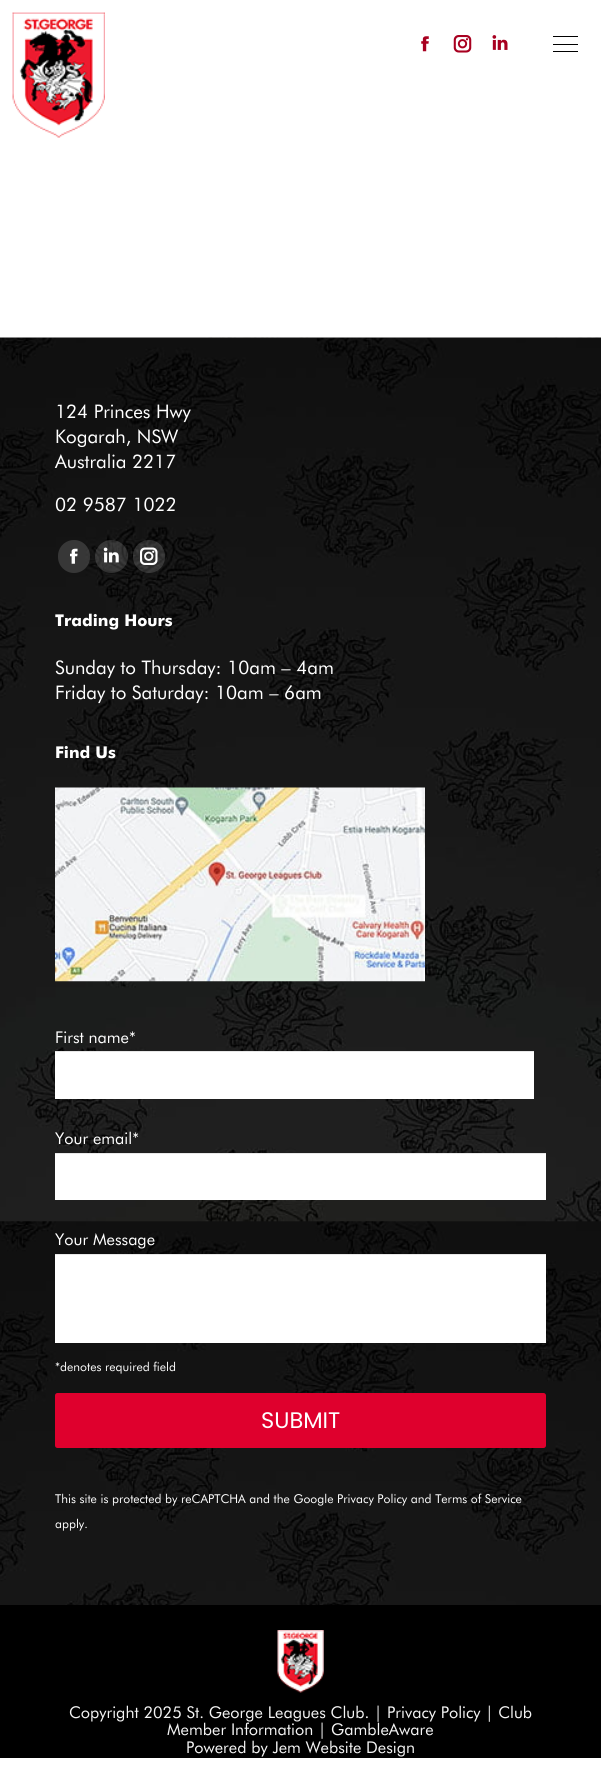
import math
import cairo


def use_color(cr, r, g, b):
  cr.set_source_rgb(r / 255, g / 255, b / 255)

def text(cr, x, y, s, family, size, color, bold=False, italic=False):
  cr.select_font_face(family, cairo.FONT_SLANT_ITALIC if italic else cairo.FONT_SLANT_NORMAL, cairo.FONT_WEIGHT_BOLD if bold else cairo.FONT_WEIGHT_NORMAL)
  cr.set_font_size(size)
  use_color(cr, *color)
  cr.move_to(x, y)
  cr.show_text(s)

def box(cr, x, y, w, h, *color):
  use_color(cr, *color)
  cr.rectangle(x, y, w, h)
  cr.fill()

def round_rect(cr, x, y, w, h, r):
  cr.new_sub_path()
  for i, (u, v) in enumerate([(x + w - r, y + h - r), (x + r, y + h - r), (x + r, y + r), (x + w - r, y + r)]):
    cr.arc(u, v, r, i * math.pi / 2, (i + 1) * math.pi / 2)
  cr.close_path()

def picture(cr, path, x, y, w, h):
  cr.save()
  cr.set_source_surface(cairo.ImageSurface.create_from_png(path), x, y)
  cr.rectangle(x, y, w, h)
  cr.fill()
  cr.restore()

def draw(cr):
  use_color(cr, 255, 255, 255)
  cr.paint()
  picture(cr, "img_01.png", 12, 12, 93, 126)
  picture(cr, "img_02.png", 421, 36, 8, 16)
  picture(cr, "img_03.png", 453, 35, 19, 18)
  picture(cr, "img_04.png", 492, 35, 16, 15)
  box(cr, 553, 36, 25, 1, 0, 0, 0)
  box(cr, 553, 44, 25, 1, 0, 0, 0)
  box(cr, 553, 51, 25, 1, 0, 0, 0)
  picture(cr, "img_05.png", 0, 337, 601, 1268)
  cr.set_source_rgba(1, 1, 1, 0.15)
  round_rect(cr, 58, 540, 32, 33, 16)
  cr.fill()
  picture(cr, "img_06.png", 70, 548, 8, 16)
  cr.arc(111.5, 556.5, 16.5, 0, 2 * math.pi)
  cr.fill()
  picture(cr, "img_07.png", 103, 547, 16, 16)
  round_rect(cr, 133, 540, 32, 33, 16)
  cr.fill()
  picture(cr, "img_08.png", 140, 547, 18, 18)
  picture(cr, "img_09.png", 55, 787, 370, 195)
  box(cr, 55, 1052, 479, 47, 255, 255, 255)
  box(cr, 55, 1051, 479, 1, 231, 231, 231)
  box(cr, 55, 1154, 491, 46, 255, 255, 255)
  box(cr, 55, 1153, 491, 1, 231, 231, 231)
  box(cr, 55, 1255, 491, 88, 255, 255, 255)
  box(cr, 55, 1254, 491, 1, 231, 231, 231)
  use_color(cr, 223, 0, 45)
  round_rect(cr, 55, 1393, 491, 55, 2.5)
  cr.fill()
  box(cr, 0, 1605, 601, 153, 0, 0, 0)
  picture(cr, "img_10.png", 277, 1630, 47, 63)
  text(cr, 55, 418, "124 Princes Hwy", "Futura", 18.75, (255, 255, 255))
  text(cr, 55, 443, "Kogarah, NSW", "Futura", 18.75, (255, 255, 255))
  text(cr, 55, 468, "Australia 2217", "Futura", 18.75, (255, 255, 255))
  text(cr, 55, 511, "02 9587 1022", "Futura", 18.75, (255, 255, 255))
  text(cr, 55, 626, "Trading Hours", "Futura", 16.25, (255, 255, 255), bold=True)
  text(cr, 55, 674, "Sunday to Thursday: 10am – 4am", "Futura", 18.75, (255, 255, 255))
  text(cr, 55, 699, "Friday to Saturday: 10am – 6am", "Futura", 18.75, (255, 255, 255))
  text(cr, 55, 758, "Find Us", "Futura", 16.25, (255, 255, 255), bold=True)
  text(cr, 55, 1043, "First name*", "Futura", 16.25, (255, 255, 255))
  text(cr, 55, 1144, "Your email*", "Futura", 16.25, (255, 255, 255))
  text(cr, 55, 1245, "Your Message", "Futura", 16.25, (255, 255, 255))
  text(cr, 55, 1371, "*denotes required field", "Futura", 12.2, (255, 255, 255))
  text(cr, 261, 1428, "SUBMIT", "Poppins", 22.5, (255, 255, 255))
  text(cr, 55, 1503, "This site is protected by reCAPTCHA and the Google Privacy Policy and Terms of Service", "Futura", 12.2, (255, 255, 255))
  text(cr, 55, 1528, "apply.", "Futura", 12.2, (255, 255, 255))
  text(cr, 69, 1718, "Copyright 2025 St. George Leagues Club. | Privacy Policy | Club", "Futura", 16.25, (244, 244, 244))
  text(cr, 167, 1735, "Member Information | GambleAware", "Futura", 16.25, (244, 244, 244))
  text(cr, 186, 1753, "Powered by Jem Website Design", "Futura", 16.25, (244, 244, 244))


surface = cairo.ImageSurface(cairo.FORMAT_RGB24, 601, 1775)
cr = cairo.Context(surface)
options = cairo.FontOptions()
options.set_hint_metrics(cairo.HINT_METRICS_OFF)
options.set_hint_style(cairo.HINT_STYLE_NONE)
cr.set_font_options(options)
cr.set_miter_limit(4)
draw(cr)
surface.write_to_png("out.png")
